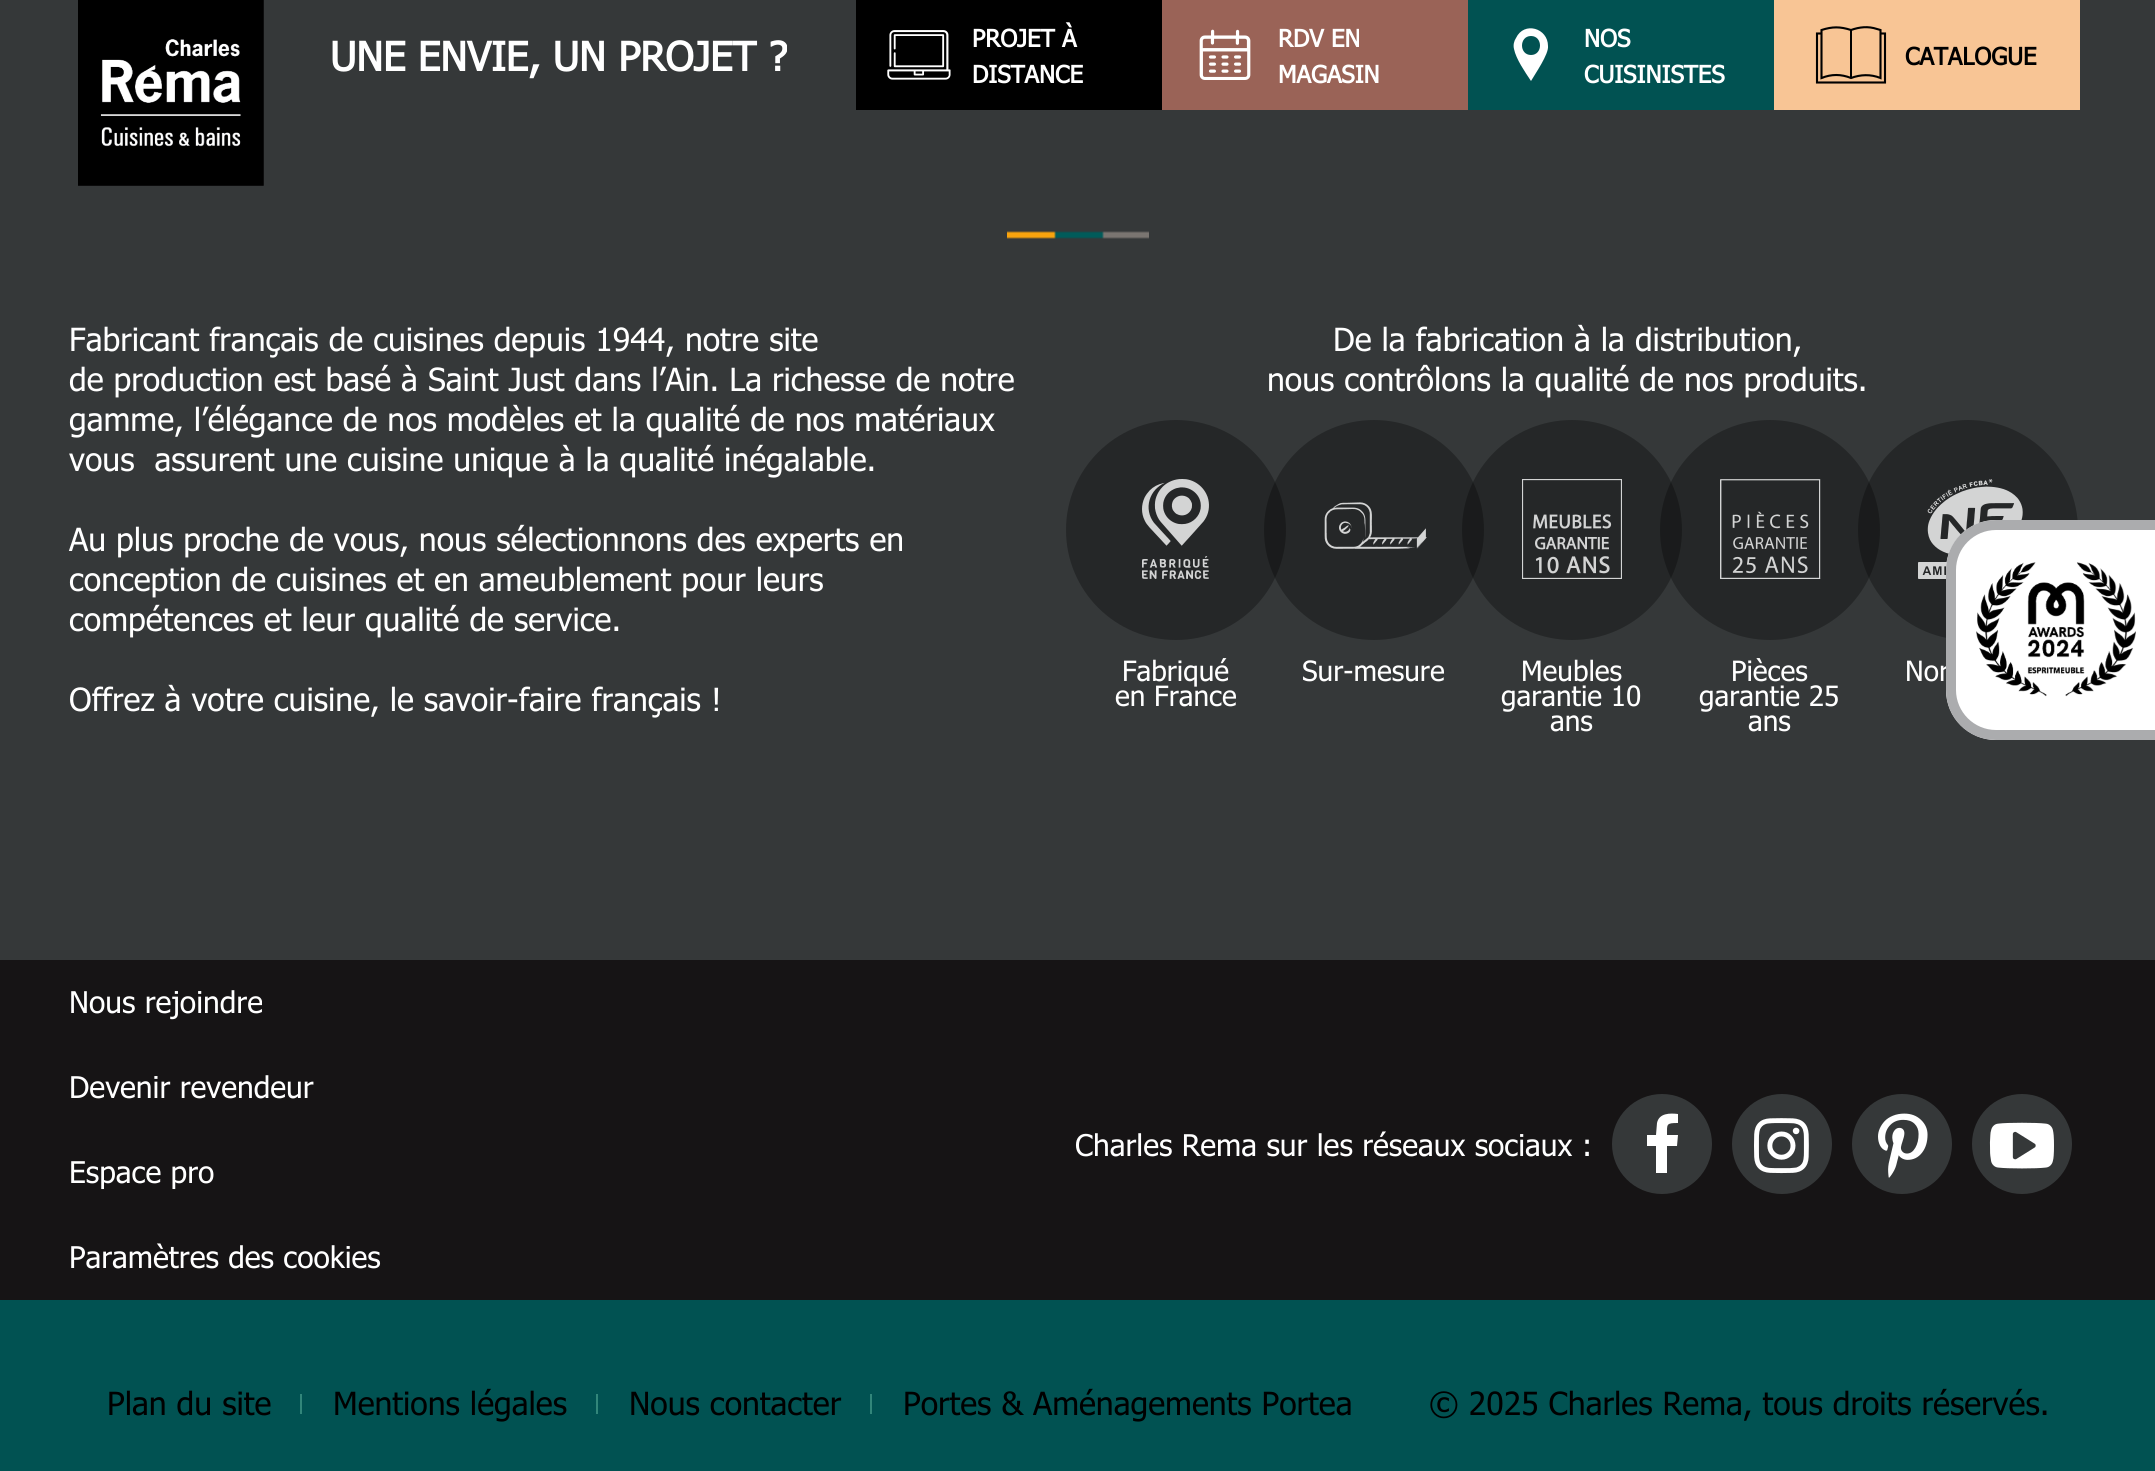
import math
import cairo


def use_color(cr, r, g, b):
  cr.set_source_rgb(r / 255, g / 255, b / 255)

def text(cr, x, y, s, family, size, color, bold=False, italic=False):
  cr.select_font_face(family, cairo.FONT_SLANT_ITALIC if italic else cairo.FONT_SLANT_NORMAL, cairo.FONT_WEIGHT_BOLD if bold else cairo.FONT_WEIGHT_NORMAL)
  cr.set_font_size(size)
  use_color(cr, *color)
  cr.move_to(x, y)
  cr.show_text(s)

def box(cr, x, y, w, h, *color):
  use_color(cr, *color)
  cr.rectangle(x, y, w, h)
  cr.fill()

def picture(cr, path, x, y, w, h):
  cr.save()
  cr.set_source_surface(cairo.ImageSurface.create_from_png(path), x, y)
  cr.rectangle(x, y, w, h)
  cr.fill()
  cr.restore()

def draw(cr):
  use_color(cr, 53, 56, 57)
  cr.paint()
  picture(cr, "img_01.png", 78, 0, 186, 186)
  box(cr, 856, 0, 306, 110, 0, 0, 0)
  picture(cr, "img_02.png", 887, 30, 64, 50)
  box(cr, 1162, 0, 306, 110, 154, 99, 87)
  picture(cr, "img_03.png", 1199, 29, 52, 51)
  box(cr, 1468, 0, 306, 110, 1, 82, 82)
  use_color(cr, 255, 255, 255)
  cr.new_path()
  cr.move_to(1548, 46)
  cr.curve_to(1548, 28, 1524, 21, 1516, 38)
  cr.curve_to(1514, 41, 1513, 45, 1514, 49)
  cr.curve_to(1516, 59, 1525, 72, 1531, 81)
  cr.curve_to(1535, 74, 1549, 54, 1548, 46)
  cr.close_path()
  cr.move_to(1531, 55)
  cr.curve_to(1519, 55, 1519, 36, 1531, 36)
  cr.curve_to(1543, 36, 1543, 55, 1531, 55)
  cr.close_path()
  cr.fill()
  box(cr, 1774, 0, 306, 110, 248, 197, 149)
  cr.new_path()
  cr.move_to(1880.5, 33.5)
  cr.line_to(1885, 33.5)
  cr.line_to(1885, 82.5)
  cr.line_to(1817, 82.5)
  cr.line_to(1817, 33.5)
  cr.line_to(1821.5, 33.5)
  use_color(cr, 0, 0, 0)
  cr.set_line_width(2.1)
  cr.stroke()
  cr.new_path()
  cr.move_to(1877, 29)
  cr.curve_to(1868, 26, 1859.5, 27, 1851, 30)
  cr.curve_to(1840, 26.5, 1832.5, 26.5, 1821.5, 30)
  cr.line_to(1821.5, 78)
  cr.curve_to(1831.5, 74, 1841, 74, 1851, 78)
  cr.curve_to(1860.5, 74.5, 1870.5, 74, 1880.5, 78)
  cr.line_to(1880.5, 30)
  cr.close_path()
  cr.stroke()
  box(cr, 1850, 30, 2, 48, 0, 0, 0)
  picture(cr, "img_04.png", 1007, 231, 142, 8)
  use_color(cr, 37, 39, 40)
  cr.arc(1176, 530, 110, 0, 2 * math.pi)
  cr.fill()
  picture(cr, "img_05.png", 1142, 479, 67, 100)
  cr.set_source_rgba(0, 0, 0, 0.3)
  cr.arc(1374, 530, 110, 0, 2 * math.pi)
  cr.fill()
  picture(cr, "img_06.png", 1324, 502, 103, 47)
  cr.arc(1572, 530, 110, 0, 2 * math.pi)
  cr.fill()
  picture(cr, "img_07.png", 1522, 479, 100, 100)
  cr.arc(1770, 530, 110, 0, 2 * math.pi)
  cr.fill()
  picture(cr, "img_08.png", 1720, 479, 101, 100)
  cr.arc(1968, 530, 110, 0, 2 * math.pi)
  cr.fill()
  picture(cr, "img_09.png", 1918, 479, 105, 100)
  box(cr, 0, 960, 2155, 340, 22, 20, 21)
  use_color(cr, 53, 56, 57)
  cr.arc(1662, 1144, 50, 0, 2 * math.pi)
  cr.fill()
  use_color(cr, 255, 255, 255)
  cr.new_path()
  cr.move_to(1678, 1114)
  cr.line_to(1678, 1123)
  cr.curve_to(1666, 1123, 1667, 1124, 1667, 1135)
  cr.line_to(1678, 1135)
  cr.line_to(1677, 1146)
  cr.line_to(1667, 1146)
  cr.line_to(1667, 1173)
  cr.line_to(1656, 1173)
  cr.line_to(1656, 1146)
  cr.line_to(1647, 1146)
  cr.line_to(1647, 1135)
  cr.line_to(1656, 1135)
  cr.line_to(1657, 1123)
  cr.curve_to(1659, 1113, 1670, 1113, 1678, 1114)
  cr.close_path()
  cr.fill()
  use_color(cr, 53, 56, 57)
  cr.arc(1782, 1144, 50, 0, 2 * math.pi)
  cr.fill()
  picture(cr, "img_10.png", 1754, 1118, 55, 56)
  cr.arc(1902, 1144, 50, 0, 2 * math.pi)
  cr.fill()
  picture(cr, "img_11.png", 1878, 1113, 50, 65)
  cr.arc(2022, 1144, 50, 0, 2 * math.pi)
  cr.fill()
  picture(cr, "img_12.png", 1989, 1122, 65, 47)
  box(cr, 0, 1300, 2155, 171, 1, 82, 82)
  box(cr, 300, 1394, 2, 20, 50, 134, 122)
  box(cr, 596, 1394, 2, 20, 50, 134, 122)
  box(cr, 870, 1394, 2, 20, 50, 134, 122)
  use_color(cr, 255, 255, 255)
  cr.new_path()
  cr.move_to(1996, 520)
  cr.line_to(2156, 520)
  cr.line_to(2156, 740)
  cr.line_to(1996, 740)
  cr.curve_to(1968.5, 740, 1946, 717.5, 1946, 690)
  cr.line_to(1946, 570)
  cr.curve_to(1946, 542.5, 1968.5, 520, 1996, 520)
  cr.close_path()
  cr.fill()
  text(cr, 330, 71, "UNE ENVIE, UN PROJET ?", "Tahoma", 40, (255, 255, 255), bold=True)
  text(cr, 972, 47, "PROJET À", "Tahoma", 24, (255, 255, 255), bold=True)
  text(cr, 972, 83, "DISTANCE", "Tahoma", 24, (255, 255, 255), bold=True)
  text(cr, 1278, 47, "RDV EN", "Tahoma", 24, (255, 255, 255), bold=True)
  text(cr, 1278, 83, "MAGASIN", "Tahoma", 24, (255, 255, 255), bold=True)
  text(cr, 1584, 47, "NOS", "Tahoma", 24, (255, 255, 255), bold=True)
  text(cr, 1584, 83, "CUISINISTES", "Tahoma", 24, (255, 255, 255), bold=True)
  text(cr, 1905, 65, "CATALOGUE", "Tahoma", 24, (0, 0, 0), bold=True)
  text(cr, 69, 351, "Fabricant français de cuisines depuis 1944, notre site", "Tahoma", 32, (255, 255, 255))
  text(cr, 69, 391, "de production est basé à Saint Just dans l’Ain. La richesse de notre", "Tahoma", 32, (255, 255, 255))
  text(cr, 69, 431, "gamme, l’élégance de nos modèles et la qualité de nos matériaux", "Tahoma", 32, (255, 255, 255))
  text(cr, 69, 471, "vous  assurent une cuisine unique à la qualité inégalable.", "Tahoma", 32, (255, 255, 255))
  text(cr, 69, 551, "Au plus proche de vous, nous sélectionnons des experts en", "Tahoma", 32, (255, 255, 255))
  text(cr, 69, 591, "conception de cuisines et en ameublement pour leurs", "Tahoma", 32, (255, 255, 255))
  text(cr, 69, 631, "compétences et leur qualité de service.", "Tahoma", 32, (255, 255, 255))
  text(cr, 69, 711, "Offrez à votre cuisine, le savoir-faire français !", "Tahoma", 32, (255, 255, 255))
  text(cr, 1333, 351, "De la fabrication à la distribution,", "Tahoma", 32, (255, 255, 255))
  text(cr, 1267, 391, "nous contrôlons la qualité de nos produits.", "Tahoma", 32, (255, 255, 255))
  text(cr, 1122, 681, "Fabriqué", "Tahoma", 28, (255, 255, 255))
  text(cr, 1115, 706, "en France", "Tahoma", 28, (255, 255, 255))
  text(cr, 1302, 681, "Sur-mesure", "Tahoma", 28, (255, 255, 255))
  text(cr, 1521, 681, "Meubles", "Tahoma", 28, (255, 255, 255))
  text(cr, 1501, 706, "garantie 10", "Tahoma", 28, (255, 255, 255))
  text(cr, 1550, 731, "ans", "Tahoma", 28, (255, 255, 255))
  text(cr, 1731, 681, "Pièces", "Tahoma", 28, (255, 255, 255))
  text(cr, 1699, 706, "garantie 25", "Tahoma", 28, (255, 255, 255))
  text(cr, 1748, 731, "ans", "Tahoma", 28, (255, 255, 255))
  text(cr, 1905, 681, "Nor", "Tahoma", 28, (255, 255, 255))
  text(cr, 69, 1013, "Nous rejoindre", "Tahoma", 30, (255, 255, 255))
  text(cr, 69, 1098, "Devenir revendeur", "Tahoma", 30, (255, 255, 255))
  text(cr, 69, 1183, "Espace pro", "Tahoma", 30, (255, 255, 255))
  text(cr, 69, 1268, "Paramètres des cookies", "Tahoma", 30, (255, 255, 255))
  text(cr, 1075, 1156, "Charles Rema sur les réseaux sociaux :", "Tahoma", 30, (255, 255, 255))
  text(cr, 107, 1415, "Plan du site", "Tahoma", 32, (0, 0, 0))
  text(cr, 333, 1415, "Mentions légales", "Tahoma", 32, (0, 0, 0))
  text(cr, 629, 1415, "Nous contacter", "Tahoma", 32, (0, 0, 0))
  text(cr, 903, 1415, "Portes & Aménagements Portea", "Tahoma", 32, (0, 0, 0))
  text(cr, 1429, 1415, "© 2025 Charles Rema, tous droits réservés.", "Tahoma", 32, (0, 0, 0))
  use_color(cr, 171, 172, 174)
  cr.set_fill_rule(cairo.FILL_RULE_EVEN_ODD)
  cr.new_path()
  cr.move_to(1996, 520)
  cr.line_to(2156, 520)
  cr.line_to(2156, 740)
  cr.line_to(1996, 740)
  cr.curve_to(1968, 740, 1946, 718, 1946, 690)
  cr.line_to(1946, 570)
  cr.curve_to(1946, 542, 1968, 520, 1996, 520)
  cr.close_path()
  cr.move_to(1996, 530)
  cr.line_to(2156, 530)
  cr.line_to(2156, 730)
  cr.line_to(1996, 730)
  cr.curve_to(1974, 730, 1956, 712, 1956, 690)
  cr.line_to(1956, 570)
  cr.curve_to(1956, 548, 1974, 530, 1996, 530)
  cr.close_path()
  cr.fill()
  picture(cr, "img_13.png", 1976, 562, 160, 135)


surface = cairo.ImageSurface(cairo.FORMAT_RGB24, 2155, 1471)
cr = cairo.Context(surface)
options = cairo.FontOptions()
options.set_hint_metrics(cairo.HINT_METRICS_OFF)
options.set_hint_style(cairo.HINT_STYLE_NONE)
cr.set_font_options(options)
cr.set_miter_limit(4)
draw(cr)
surface.write_to_png("out.png")
